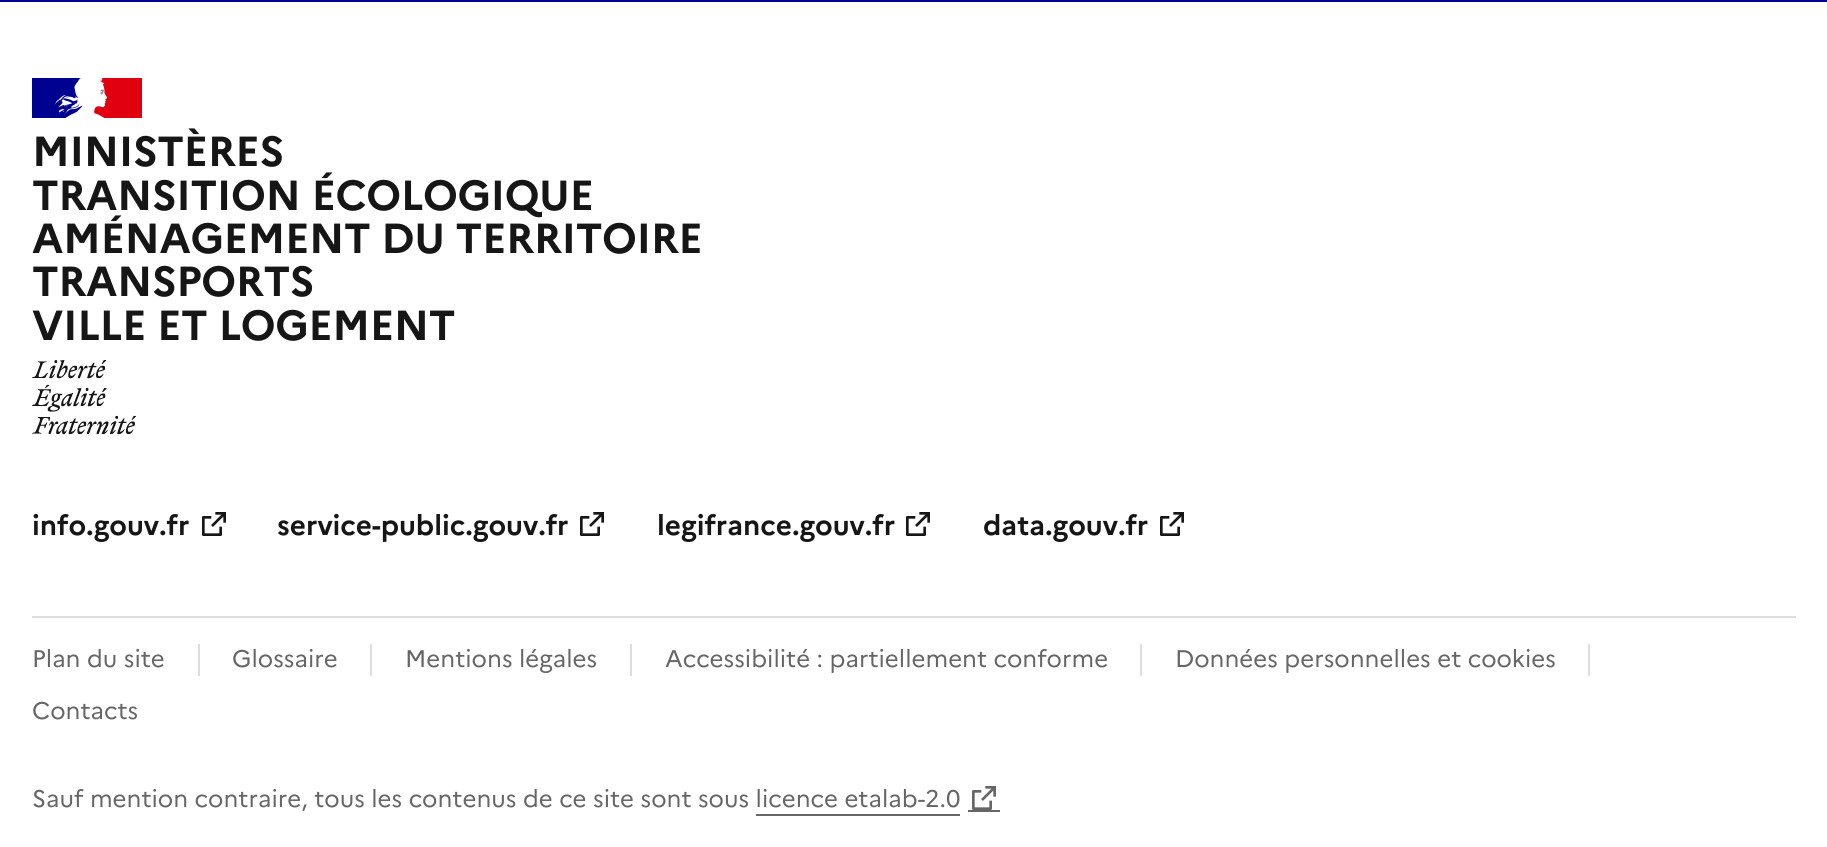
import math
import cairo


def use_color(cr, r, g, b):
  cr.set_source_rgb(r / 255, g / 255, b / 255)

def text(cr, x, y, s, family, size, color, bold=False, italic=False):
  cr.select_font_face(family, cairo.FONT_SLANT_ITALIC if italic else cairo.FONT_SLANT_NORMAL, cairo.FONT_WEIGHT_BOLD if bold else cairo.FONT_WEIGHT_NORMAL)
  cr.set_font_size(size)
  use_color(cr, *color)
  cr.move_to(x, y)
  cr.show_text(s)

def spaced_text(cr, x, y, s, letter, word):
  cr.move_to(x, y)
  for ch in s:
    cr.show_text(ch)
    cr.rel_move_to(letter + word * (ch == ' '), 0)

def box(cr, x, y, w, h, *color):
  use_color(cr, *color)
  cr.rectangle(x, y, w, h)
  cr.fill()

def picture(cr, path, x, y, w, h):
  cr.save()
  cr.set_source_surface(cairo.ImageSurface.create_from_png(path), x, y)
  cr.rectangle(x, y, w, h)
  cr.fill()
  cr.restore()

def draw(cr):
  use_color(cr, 255, 255, 255)
  cr.paint()
  box(cr, 0, 0, 1827, 2, 0, 0, 145)
  box(cr, 32, 78, 51, 40, 0, 0, 145)
  box(cr, 94, 78, 48, 40, 225, 0, 15)
  picture(cr, "img_01.png", 54, 78, 54, 40)
  picture(cr, "img_02.png", 32, 360, 105, 75)
  picture(cr, "img_03.png", 202, 512, 24, 24)
  picture(cr, "img_03.png", 580, 512, 24, 24)
  picture(cr, "img_03.png", 906, 512, 24, 24)
  picture(cr, "img_03.png", 1160, 512, 24, 24)
  box(cr, 32, 616, 1764, 2, 221, 221, 221)
  box(cr, 198, 644, 2, 32, 221, 221, 221)
  box(cr, 370, 644, 2, 32, 221, 221, 221)
  box(cr, 630, 644, 2, 32, 221, 221, 221)
  box(cr, 1140, 644, 2, 32, 221, 221, 221)
  box(cr, 1588, 644, 2, 32, 221, 221, 221)
  box(cr, 756, 814, 204, 2, 102, 102, 102)
  box(cr, 968, 810, 32, 2, 102, 102, 102)
  picture(cr, "img_04.png", 972, 786, 24, 24)
  cr.select_font_face("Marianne", cairo.FONT_SLANT_NORMAL, cairo.FONT_WEIGHT_BOLD)
  cr.set_font_size(42)
  use_color(cr, 22, 22, 22)
  spaced_text(cr, 32, 166, "MINISTÈRES", -0.4, 0)
  spaced_text(cr, 32, 210, "TRANSITION ÉCOLOGIQUE", -0.4, 0)
  spaced_text(cr, 32, 253, "AMÉNAGEMENT DU TERRITOIRE", -0.4, 0)
  spaced_text(cr, 32, 296, "TRANSPORTS", -0.4, 0)
  spaced_text(cr, 32, 340, "VILLE ET LOGEMENT", -0.4, 0)
  text(cr, 32, 535, "info.gouv.fr", "Marianne", 28, (22, 22, 22), bold=True)
  text(cr, 277, 535, "service-public.gouv.fr", "Marianne", 28, (22, 22, 22), bold=True)
  text(cr, 657, 535, "legifrance.gouv.fr", "Marianne", 28, (22, 22, 22), bold=True)
  text(cr, 983, 535, "data.gouv.fr", "Marianne", 28, (22, 22, 22), bold=True)
  text(cr, 32, 667, "Plan du site", "Marianne", 24, (102, 102, 102))
  text(cr, 232, 667, "Glossaire", "Marianne", 24, (102, 102, 102))
  text(cr, 405, 667, "Mentions légales", "Marianne", 24, (102, 102, 102))
  text(cr, 665, 667, "Accessibilité : partiellement conforme", "Marianne", 24, (102, 102, 102))
  text(cr, 1175, 667, "Données personnelles et cookies", "Marianne", 24, (102, 102, 102))
  text(cr, 32, 719, "Contacts", "Marianne", 24, (102, 102, 102))
  text(cr, 32, 807, "Sauf mention contraire, tous les contenus de ce site sont sous licence etalab-2.0", "Marianne", 24, (102, 102, 102))


surface = cairo.ImageSurface(cairo.FORMAT_RGB24, 1827, 847)
cr = cairo.Context(surface)
options = cairo.FontOptions()
options.set_hint_metrics(cairo.HINT_METRICS_OFF)
options.set_hint_style(cairo.HINT_STYLE_NONE)
cr.set_font_options(options)
cr.set_miter_limit(4)
draw(cr)
surface.write_to_png("out.png")
